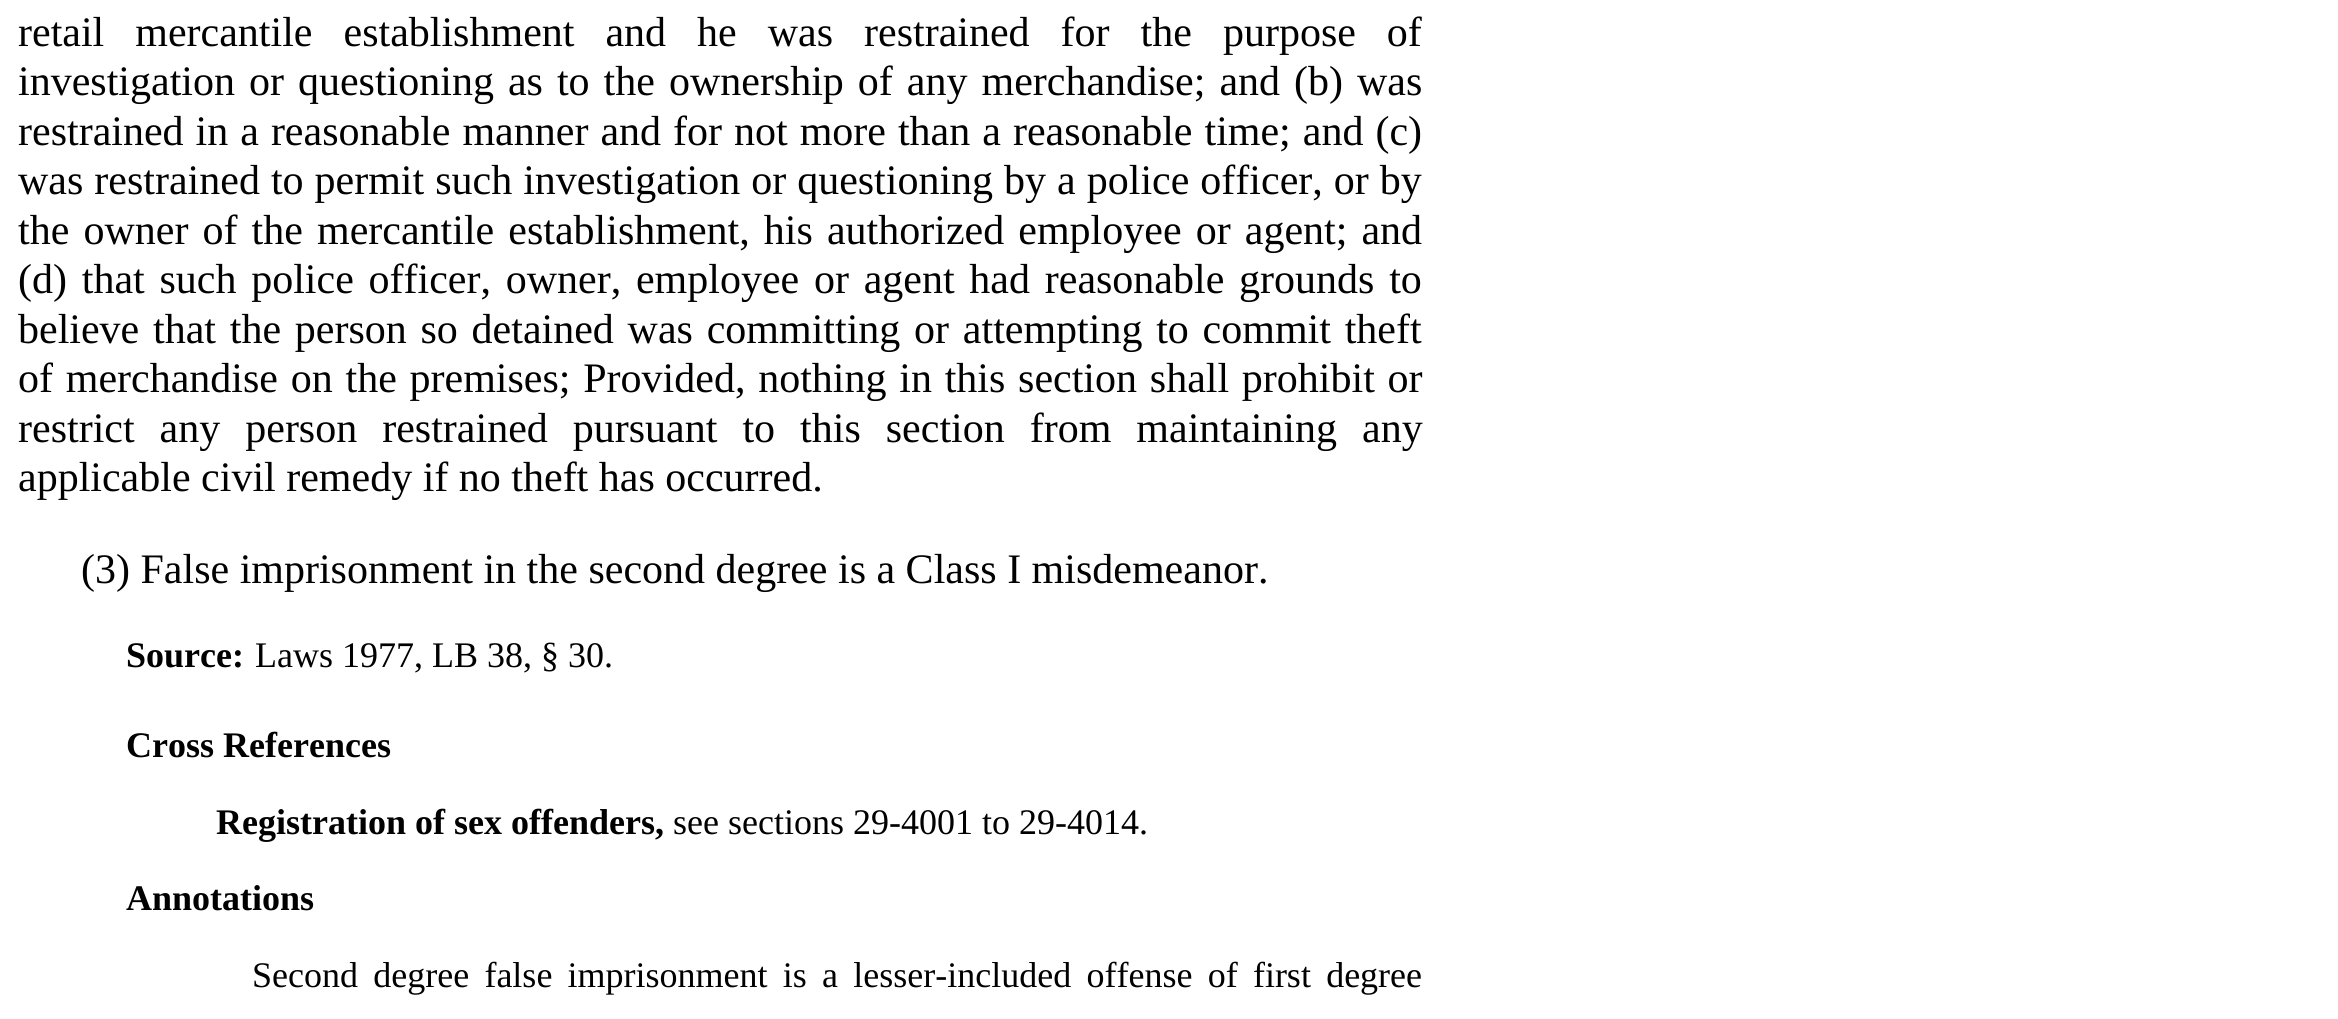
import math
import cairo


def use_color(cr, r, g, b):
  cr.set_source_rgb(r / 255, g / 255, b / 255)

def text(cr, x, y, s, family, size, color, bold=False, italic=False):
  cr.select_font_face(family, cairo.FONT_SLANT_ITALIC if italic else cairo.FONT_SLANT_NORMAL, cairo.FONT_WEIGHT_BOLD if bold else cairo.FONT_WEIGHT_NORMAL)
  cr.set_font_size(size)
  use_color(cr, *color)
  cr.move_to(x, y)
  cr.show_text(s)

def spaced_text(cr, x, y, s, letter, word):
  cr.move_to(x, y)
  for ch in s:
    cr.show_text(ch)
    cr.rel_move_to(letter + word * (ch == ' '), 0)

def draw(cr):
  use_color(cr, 255, 255, 255)
  cr.paint()
  cr.select_font_face("Liberation Serif")
  cr.set_font_size(42)
  use_color(cr, 0, 0, 0)
  spaced_text(cr, 18, 46, "retail mercantile establishment and he was restrained for the purpose of", 0, 20.5)
  spaced_text(cr, 18, 95, "investigation or questioning as to the ownership of any merchandise; and (b) was", 0, 3.5)
  spaced_text(cr, 18, 145, "restrained in a reasonable manner and for not more than a reasonable time; and (c)", 0, 1.5)
  spaced_text(cr, 18, 194, "was restrained to permit such investigation or questioning by a police officer, or by", 0, 0.5)
  spaced_text(cr, 18, 244, "the owner of the mercantile establishment, his authorized employee or agent; and", 0, 3.6)
  spaced_text(cr, 18, 293, "(d) that such police officer, owner, employee or agent had reasonable grounds to", 0, 4.25)
  spaced_text(cr, 18, 343, "believe that the person so detained was committing or attempting to commit theft", 0, 3.25)
  spaced_text(cr, 18, 392, "of merchandise on the premises; Provided, nothing in this section shall prohibit or", 0, 2.25)
  spaced_text(cr, 18, 442, "restrict any person restrained pursuant to this section from maintaining any", 0, 14.5)
  text(cr, 18, 491, "applicable civil remedy if no theft has occurred.", "Liberation Serif", 42, (0, 0, 0))
  text(cr, 81, 583, "(3) False imprisonment in the second degree is a Class I misdemeanor.", "Liberation Serif", 42, (0, 0, 0))
  text(cr, 126, 667, "Source:", "Liberation Serif", 36, (0, 0, 0), bold=True)
  text(cr, 255, 667, "Laws 1977, LB 38, § 30.", "Liberation Serif", 36, (0, 0, 0))
  text(cr, 126, 757, "Cross References", "Liberation Serif", 36, (0, 0, 0), bold=True)
  text(cr, 216, 834, "Registration of sex offenders,", "Liberation Serif", 36, (0, 0, 0), bold=True)
  text(cr, 673, 834, "see sections 29-4001 to 29-4014.", "Liberation Serif", 36, (0, 0, 0))
  text(cr, 126, 910, "Annotations", "Liberation Serif", 36, (0, 0, 0), bold=True)
  cr.select_font_face("Liberation Serif")
  spaced_text(cr, 252, 987, "Second degree false imprisonment is a lesser-included offense of first degree", 0, 6.25)


surface = cairo.ImageSurface(cairo.FORMAT_RGB24, 2338, 1019)
cr = cairo.Context(surface)
options = cairo.FontOptions()
options.set_hint_metrics(cairo.HINT_METRICS_OFF)
options.set_hint_style(cairo.HINT_STYLE_NONE)
cr.set_font_options(options)
cr.set_miter_limit(4)
draw(cr)
surface.write_to_png("out.png")
